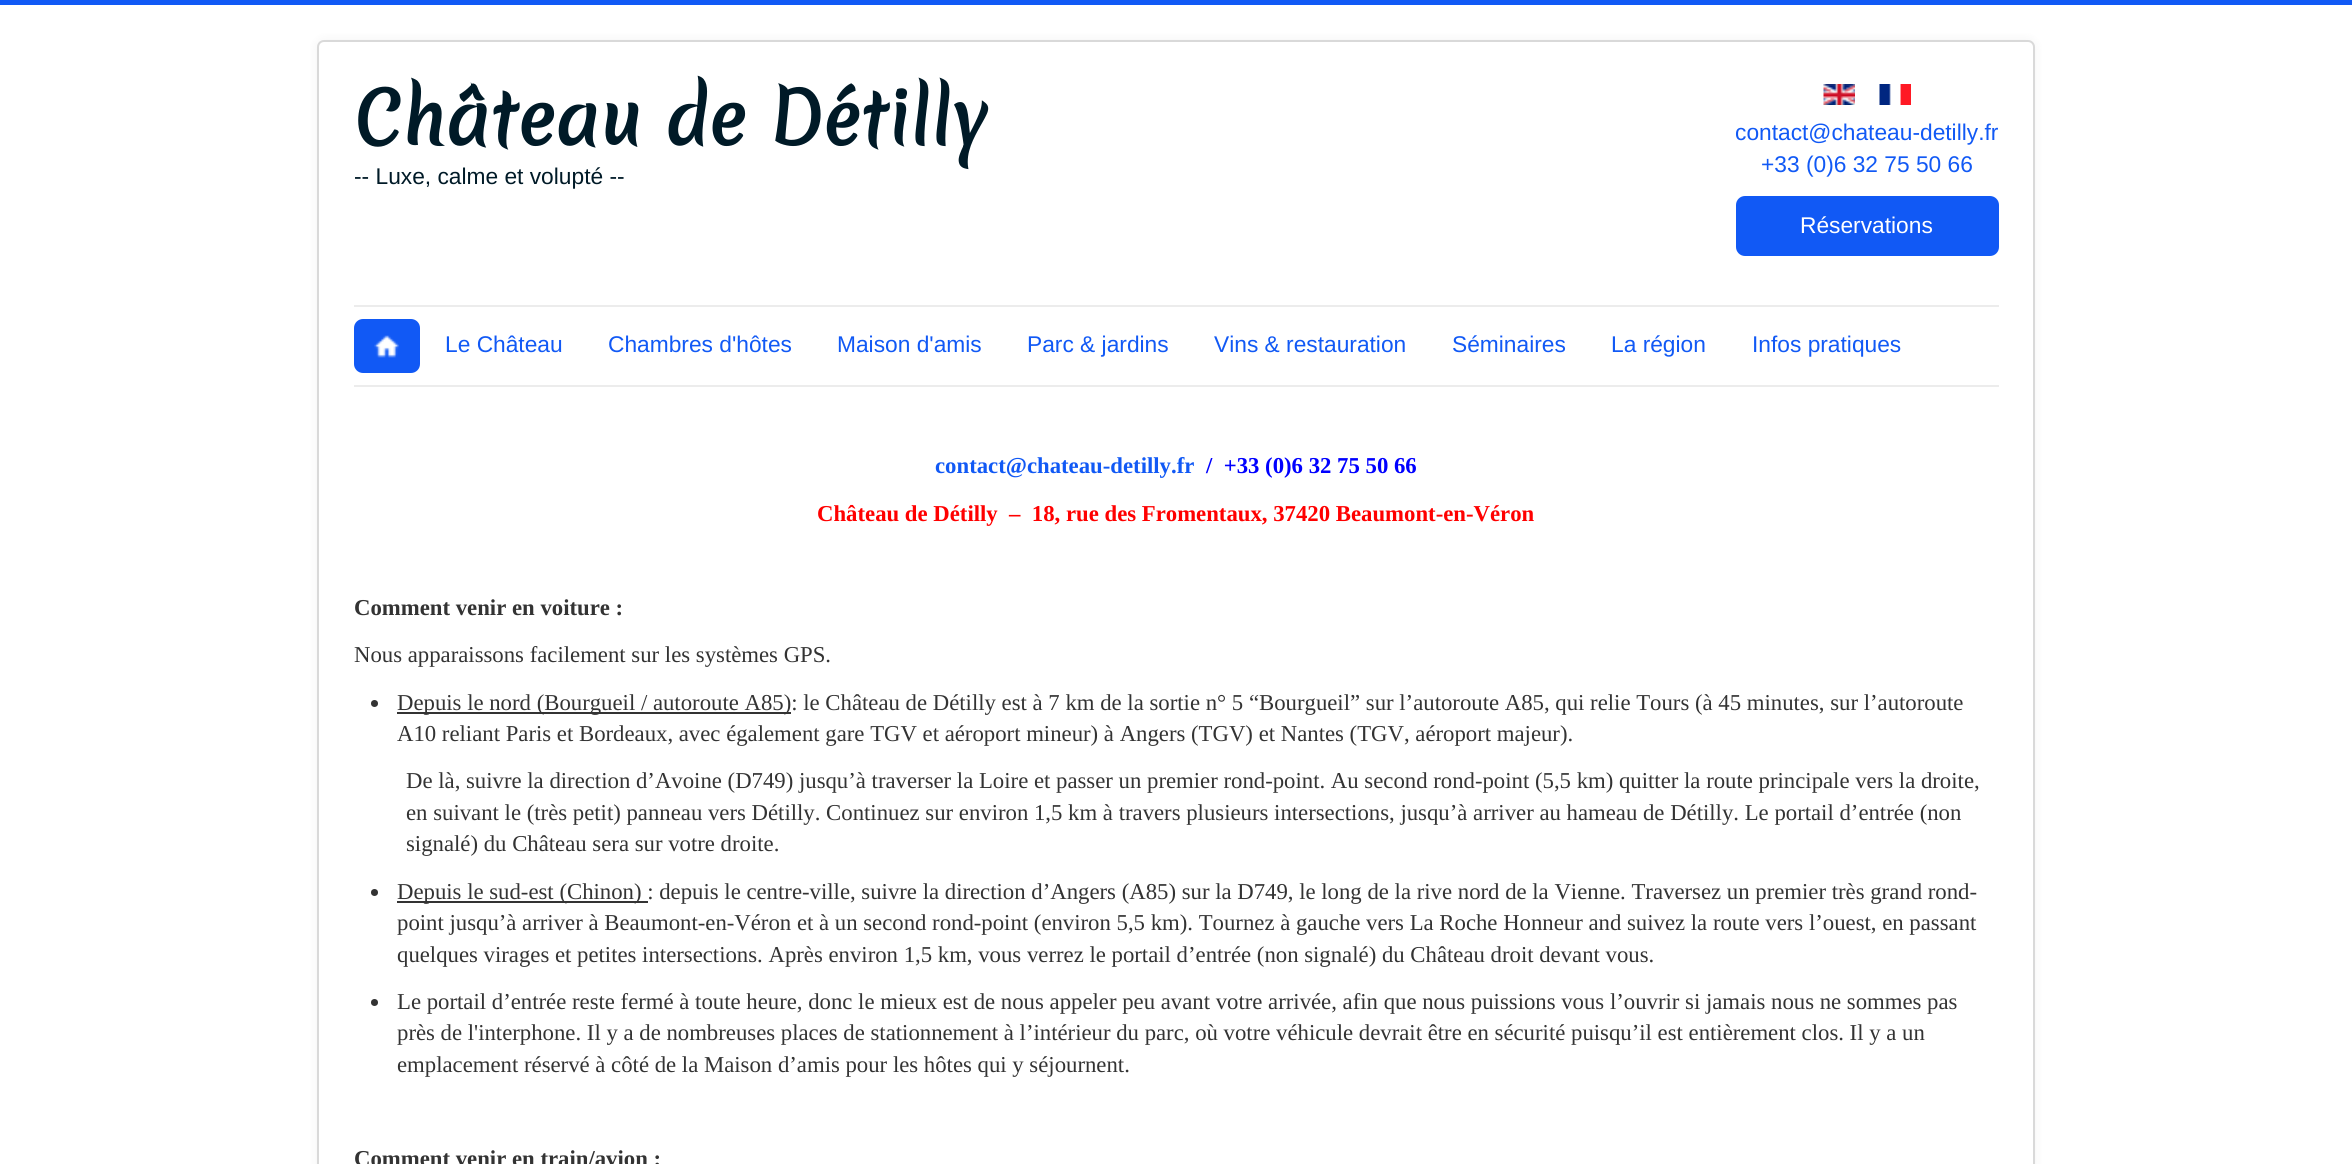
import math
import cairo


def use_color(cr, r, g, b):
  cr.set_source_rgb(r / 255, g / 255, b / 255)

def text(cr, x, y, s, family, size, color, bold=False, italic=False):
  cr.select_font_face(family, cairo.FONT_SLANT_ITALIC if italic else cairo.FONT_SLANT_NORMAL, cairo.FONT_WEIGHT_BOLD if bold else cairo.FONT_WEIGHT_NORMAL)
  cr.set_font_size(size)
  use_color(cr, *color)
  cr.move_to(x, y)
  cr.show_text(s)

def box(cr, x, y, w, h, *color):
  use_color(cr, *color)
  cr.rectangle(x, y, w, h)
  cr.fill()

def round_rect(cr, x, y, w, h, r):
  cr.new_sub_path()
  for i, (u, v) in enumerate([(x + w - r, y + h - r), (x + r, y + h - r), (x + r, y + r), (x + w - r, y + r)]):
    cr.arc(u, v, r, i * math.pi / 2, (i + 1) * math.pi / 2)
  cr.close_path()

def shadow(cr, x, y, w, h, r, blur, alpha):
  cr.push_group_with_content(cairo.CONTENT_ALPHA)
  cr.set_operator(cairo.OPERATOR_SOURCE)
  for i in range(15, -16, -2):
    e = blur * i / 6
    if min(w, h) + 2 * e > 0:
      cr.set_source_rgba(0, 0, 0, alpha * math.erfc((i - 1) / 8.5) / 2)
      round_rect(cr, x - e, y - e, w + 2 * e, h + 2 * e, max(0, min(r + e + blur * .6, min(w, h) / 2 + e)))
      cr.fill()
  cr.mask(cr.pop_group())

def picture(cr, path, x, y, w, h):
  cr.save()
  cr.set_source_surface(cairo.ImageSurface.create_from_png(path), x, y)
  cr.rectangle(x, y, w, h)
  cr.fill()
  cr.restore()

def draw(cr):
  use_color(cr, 255, 255, 255)
  cr.paint()
  box(cr, 0, 0, 2352, 5, 17, 89, 245)
  use_color(cr, 0, 0, 0)
  shadow(cr, 317, 40, 1718, 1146, 7, 5, 0.05)
  use_color(cr, 255, 255, 255)
  round_rect(cr, 318, 41, 1716, 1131, 6)
  cr.fill_preserve()
  use_color(cr, 217, 217, 217)
  cr.stroke()
  picture(cr, "img_01.png", 1823, 84, 32, 21)
  picture(cr, "img_02.png", 1879, 84, 32, 21)
  use_color(cr, 17, 89, 245)
  round_rect(cr, 1736, 196, 263, 60, 9)
  cr.fill()
  box(cr, 354, 305, 1645, 2, 236, 236, 236)
  box(cr, 354, 385, 1645, 2, 236, 236, 236)
  use_color(cr, 17, 89, 245)
  round_rect(cr, 354, 319, 66, 54, 9)
  cr.fill()
  picture(cr, "img_03.png", 374, 335, 25, 23)
  use_color(cr, 51, 51, 51)
  cr.arc(374.5, 703.5, 3.5, 0, 2 * math.pi)
  cr.fill()
  box(cr, 397, 712, 394, 2, 51, 51, 51)
  cr.arc(374.5, 892.5, 3.5, 0, 2 * math.pi)
  cr.fill()
  box(cr, 397, 901, 251, 2, 51, 51, 51)
  cr.arc(374.5, 1002.5, 3.5, 0, 2 * math.pi)
  cr.fill()
  text(cr, 354, 145, "Château de Détilly", "Merienda", 70, (0, 26, 39), bold=True)
  text(cr, 354, 184, "-- Luxe, calme et volupté --", "Liberation Sans", 22.75, (0, 26, 39))
  text(cr, 1735, 140, "contact@chateau-detilly.fr", "Liberation Sans", 22.75, (17, 89, 245))
  text(cr, 1761, 172, "+33 (0)6 32 75 50 66", "Liberation Sans", 22.75, (17, 89, 245))
  text(cr, 1800, 233, "Réservations", "Liberation Sans", 22.75, (255, 255, 255))
  text(cr, 445, 352, "Le Château", "Liberation Sans", 22.75, (17, 89, 245))
  text(cr, 608, 352, "Chambres d'hôtes", "Liberation Sans", 22.75, (17, 89, 245))
  text(cr, 837, 352, "Maison d'amis", "Liberation Sans", 22.75, (17, 89, 245))
  text(cr, 1027, 352, "Parc & jardins", "Liberation Sans", 22.75, (17, 89, 245))
  text(cr, 1214, 352, "Vins & restauration", "Liberation Sans", 22.75, (17, 89, 245))
  text(cr, 1452, 352, "Séminaires", "Liberation Sans", 22.75, (17, 89, 245))
  text(cr, 1611, 352, "La région", "Liberation Sans", 22.75, (17, 89, 245))
  text(cr, 1752, 352, "Infos pratiques", "Liberation Sans", 22.75, (17, 89, 245))
  text(cr, 935, 473, "contact@chateau-detilly.fr", "Liberation Serif", 22.75, (17, 89, 245), bold=True)
  text(cr, 1206, 473, "/  +33 (0)6 32 75 50 66", "Liberation Serif", 22.75, (0, 0, 255), bold=True)
  text(cr, 817, 521, "Château de Détilly  –  18, rue des Fromentaux, 37420 Beaumont-en-Véron", "Liberation Serif", 22.75, (255, 0, 0), bold=True)
  text(cr, 354, 615, "Comment venir en voiture :", "Liberation Serif", 22.75, (51, 51, 51), bold=True)
  text(cr, 354, 662, "Nous apparaissons facilement sur les systèmes GPS.", "Liberation Serif", 22.75, (51, 51, 51))
  text(cr, 397, 710, "Depuis le nord (Bourgueil / autoroute A85): le Château de Détilly est à 7 km de la sortie n° 5 “Bourgueil” sur l’autoroute A85, qui relie Tours (à 45 minutes, sur l’autoroute", "Liberation Serif", 22.75, (51, 51, 51))
  text(cr, 397, 741, "A10 reliant Paris et Bordeaux, avec également gare TGV et aéroport mineur) à Angers (TGV) et Nantes (TGV, aéroport majeur).", "Liberation Serif", 22.75, (51, 51, 51))
  text(cr, 406, 788, "De là, suivre la direction d’Avoine (D749) jusqu’à traverser la Loire et passer un premier rond-point. Au second rond-point (5,5 km) quitter la route principale vers la droite,", "Liberation Serif", 22.75, (51, 51, 51))
  text(cr, 406, 820, "en suivant le (très petit) panneau vers Détilly. Continuez sur environ 1,5 km à travers plusieurs intersections, jusqu’à arriver au hameau de Détilly. Le portail d’entrée (non", "Liberation Serif", 22.75, (51, 51, 51))
  text(cr, 406, 851, "signalé) du Château sera sur votre droite.", "Liberation Serif", 22.75, (51, 51, 51))
  text(cr, 397, 899, "Depuis le sud-est (Chinon) : depuis le centre-ville, suivre la direction d’Angers (A85) sur la D749, le long de la rive nord de la Vienne. Traversez un premier très grand rond-", "Liberation Serif", 22.75, (51, 51, 51))
  text(cr, 397, 930, "point jusqu’à arriver à Beaumont-en-Véron et à un second rond-point (environ 5,5 km). Tournez à gauche vers La Roche Honneur and suivez la route vers l’ouest, en passant", "Liberation Serif", 22.75, (51, 51, 51))
  text(cr, 397, 962, "quelques virages et petites intersections. Après environ 1,5 km, vous verrez le portail d’entrée (non signalé) du Château droit devant vous.", "Liberation Serif", 22.75, (51, 51, 51))
  text(cr, 397, 1009, "Le portail d’entrée reste fermé à toute heure, donc le mieux est de nous appeler peu avant votre arrivée, afin que nous puissions vous l’ouvrir si jamais nous ne sommes pas", "Liberation Serif", 22.75, (51, 51, 51))
  text(cr, 397, 1040, "près de l'interphone. Il y a de nombreuses places de stationnement à l’intérieur du parc, où votre véhicule devrait être en sécurité puisqu’il est entièrement clos. Il y a un", "Liberation Serif", 22.75, (51, 51, 51))
  text(cr, 397, 1072, "emplacement réservé à côté de la Maison d’amis pour les hôtes qui y séjournent.", "Liberation Serif", 22.75, (51, 51, 51))
  text(cr, 354, 1166, "Comment venir en train/avion :", "Liberation Serif", 22.75, (51, 51, 51), bold=True)


surface = cairo.ImageSurface(cairo.FORMAT_RGB24, 2352, 1164)
cr = cairo.Context(surface)
options = cairo.FontOptions()
options.set_hint_metrics(cairo.HINT_METRICS_OFF)
options.set_hint_style(cairo.HINT_STYLE_NONE)
cr.set_font_options(options)
cr.set_miter_limit(4)
draw(cr)
surface.write_to_png("out.png")
